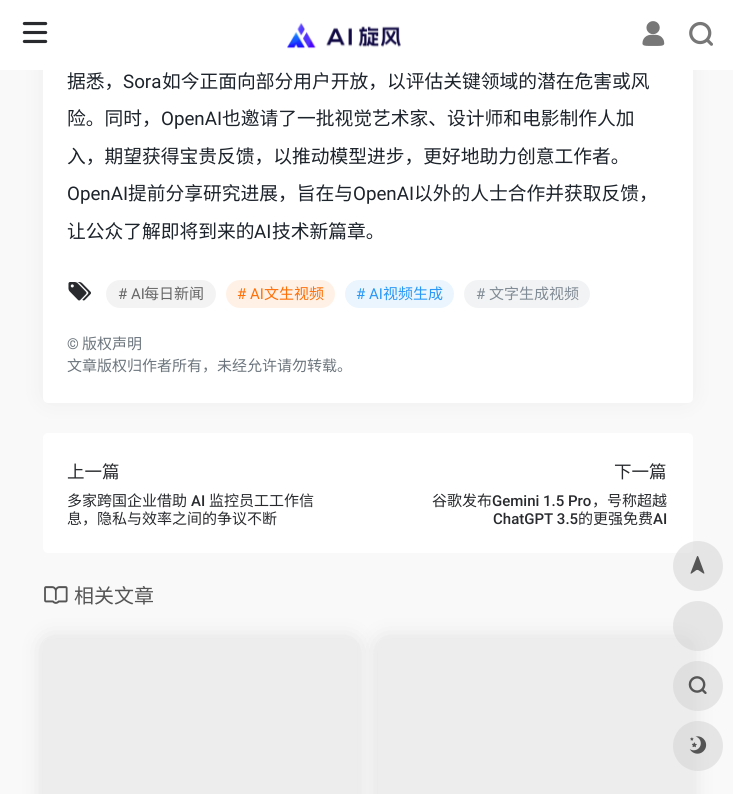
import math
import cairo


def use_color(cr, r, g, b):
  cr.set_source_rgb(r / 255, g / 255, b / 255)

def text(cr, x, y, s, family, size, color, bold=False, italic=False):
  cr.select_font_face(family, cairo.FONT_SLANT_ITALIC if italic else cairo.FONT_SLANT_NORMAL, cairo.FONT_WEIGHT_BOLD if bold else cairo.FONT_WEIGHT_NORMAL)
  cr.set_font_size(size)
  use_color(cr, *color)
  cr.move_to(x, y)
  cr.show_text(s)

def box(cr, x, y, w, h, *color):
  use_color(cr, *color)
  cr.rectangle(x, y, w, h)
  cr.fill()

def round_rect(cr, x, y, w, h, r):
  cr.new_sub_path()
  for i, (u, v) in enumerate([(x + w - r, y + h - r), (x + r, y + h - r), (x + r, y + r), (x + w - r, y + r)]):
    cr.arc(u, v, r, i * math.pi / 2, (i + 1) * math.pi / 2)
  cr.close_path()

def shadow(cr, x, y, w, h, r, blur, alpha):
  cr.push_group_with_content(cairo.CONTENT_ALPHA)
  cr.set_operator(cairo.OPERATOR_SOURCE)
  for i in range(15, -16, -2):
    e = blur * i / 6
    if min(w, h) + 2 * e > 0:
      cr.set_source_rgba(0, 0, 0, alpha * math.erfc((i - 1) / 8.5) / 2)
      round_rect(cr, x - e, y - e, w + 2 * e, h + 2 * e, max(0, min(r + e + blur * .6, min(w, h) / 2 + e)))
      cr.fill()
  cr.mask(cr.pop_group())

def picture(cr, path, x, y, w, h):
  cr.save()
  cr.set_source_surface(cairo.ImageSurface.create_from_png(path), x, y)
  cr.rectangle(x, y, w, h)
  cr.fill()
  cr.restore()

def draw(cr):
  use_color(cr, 249, 249, 249)
  cr.paint()
  use_color(cr, 255, 255, 255)
  round_rect(cr, 43, 433, 650, 120, 5)
  cr.fill()
  use_color(cr, 158, 158, 158)
  shadow(cr, 49, -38, 637, 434, 0, 12.5, 0.2)
  use_color(cr, 255, 255, 255)
  round_rect(cr, 43, -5, 650, 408, 5)
  cr.fill()
  box(cr, 0, 0, 733, 70, 255, 255, 255)
  picture(cr, "img_01.png", 22, 21, 26, 23)
  picture(cr, "img_02.png", 287, 22, 114, 27)
  picture(cr, "img_03.png", 642, 21, 23, 25)
  picture(cr, "img_04.png", 689, 21, 24, 25)
  picture(cr, "img_05.png", 68, 282, 23, 19)
  use_color(cr, 243, 243, 243)
  round_rect(cr, 106, 280, 110, 28, 14)
  cr.fill()
  use_color(cr, 255, 241, 230)
  round_rect(cr, 226, 280, 109, 28, 14)
  cr.fill()
  use_color(cr, 234, 245, 254)
  round_rect(cr, 345, 280, 109, 28, 14)
  cr.fill()
  use_color(cr, 242, 243, 244)
  round_rect(cr, 464, 280, 126, 28, 14)
  cr.fill()
  picture(cr, "img_06.png", 44, 586, 24, 18)
  cr.save()
  cr.set_fill_rule(cairo.FILL_RULE_EVEN_ODD)
  cr.new_path()
  cr.move_to(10, 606)
  cr.line_to(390, 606)
  cr.line_to(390, 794)
  cr.line_to(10, 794)
  cr.close_path()
  cr.move_to(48, 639)
  cr.line_to(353, 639)
  cr.curve_to(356, 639, 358, 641, 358, 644)
  cr.line_to(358, 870)
  cr.curve_to(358, 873, 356, 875, 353, 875)
  cr.line_to(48, 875)
  cr.curve_to(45, 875, 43, 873, 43, 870)
  cr.line_to(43, 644)
  cr.curve_to(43, 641, 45, 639, 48, 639)
  cr.close_path()
  cr.clip()
  use_color(cr, 20, 20, 20)
  shadow(cr, 49, 645, 302, 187, 0, 12.5, 0.2)
  cr.restore()
  cr.set_source_rgba(0.471, 0.471, 0.471, 0.1)
  round_rect(cr, 43, 639, 315, 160, 5)
  cr.fill()
  cr.save()
  cr.set_fill_rule(cairo.FILL_RULE_EVEN_ODD)
  cr.new_path()
  cr.move_to(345, 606)
  cr.line_to(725, 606)
  cr.line_to(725, 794)
  cr.line_to(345, 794)
  cr.close_path()
  cr.move_to(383, 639)
  cr.line_to(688, 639)
  cr.curve_to(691, 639, 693, 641, 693, 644)
  cr.line_to(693, 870)
  cr.curve_to(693, 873, 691, 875, 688, 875)
  cr.line_to(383, 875)
  cr.curve_to(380, 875, 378, 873, 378, 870)
  cr.line_to(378, 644)
  cr.curve_to(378, 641, 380, 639, 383, 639)
  cr.close_path()
  cr.clip()
  use_color(cr, 20, 20, 20)
  shadow(cr, 384, 645, 302, 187, 0, 12.5, 0.2)
  cr.restore()
  round_rect(cr, 378, 639, 315, 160, 5)
  cr.fill()
  cr.set_source_rgba(0.824, 0.824, 0.824, 0.5)
  cr.arc(698, 566, 25, 0, 2 * math.pi)
  cr.fill()
  picture(cr, "img_07.png", 690, 556, 15, 18)
  cr.arc(698, 626, 25, 0, 2 * math.pi)
  cr.fill()
  cr.arc(698, 686, 25, 0, 2 * math.pi)
  cr.fill()
  picture(cr, "img_08.png", 688, 676, 19, 18)
  cr.arc(698, 746, 25, 0, 2 * math.pi)
  cr.fill()
  picture(cr, "img_09.png", 689, 736, 18, 18)
  text(cr, 67, 88, "据悉，", "Noto Sans CJK SC", 18.75, (29, 35, 43))
  text(cr, 123, 88, "Sora", "Roboto", 18.75, (29, 35, 43))
  text(cr, 162, 88, "如今正面向部分用户开放，以评估关键领域的潜在危害或风", "Noto Sans CJK SC", 18.75, (29, 35, 43))
  text(cr, 67, 125, "险。同时，", "Noto Sans CJK SC", 18.75, (29, 35, 43))
  text(cr, 161, 125, "OpenAI", "Roboto", 18.75, (29, 35, 43))
  text(cr, 222, 125, "也邀请了一批视觉艺术家、设计师和电影制作人加", "Noto Sans CJK SC", 18.75, (29, 35, 43))
  text(cr, 67, 163, "入，期望获得宝贵反馈，以推动模型进步，更好地助力创意工作者。", "Noto Sans CJK SC", 18.75, (29, 35, 43))
  text(cr, 67, 200, "OpenAI", "Roboto", 18.75, (29, 35, 43))
  text(cr, 128, 200, "提前分享研究进展，旨在与", "Noto Sans CJK SC", 18.75, (29, 35, 43))
  text(cr, 353, 200, "OpenAI", "Roboto", 18.75, (29, 35, 43))
  text(cr, 414, 200, "以外的人士合作并获取反馈，", "Noto Sans CJK SC", 18.75, (29, 35, 43))
  text(cr, 67, 238, "让公众了解即将到来的", "Noto Sans CJK SC", 18.75, (29, 35, 43))
  text(cr, 254, 238, "AI", "Roboto", 18.75, (29, 35, 43))
  text(cr, 272, 238, "技术新篇章。", "Noto Sans CJK SC", 18.75, (29, 35, 43))
  text(cr, 118, 299, "# AI", "Roboto", 15, (102, 102, 102))
  text(cr, 144, 299, "每日新闻", "Noto Sans CJK SC", 15, (102, 102, 102))
  text(cr, 237, 299, "# AI", "Roboto", 15, (255, 111, 6))
  text(cr, 264, 299, "文生视频", "Noto Sans CJK SC", 15, (255, 111, 6))
  text(cr, 356, 299, "# AI", "Roboto", 15, (41, 151, 247))
  text(cr, 383, 299, "视频生成", "Noto Sans CJK SC", 15, (41, 151, 247))
  text(cr, 476, 299, "#", "Roboto", 15, (129, 139, 149))
  text(cr, 489, 299, "文字生成视频", "Noto Sans CJK SC", 15, (129, 139, 149))
  text(cr, 67, 349, "©", "Roboto", 15, (108, 117, 125))
  text(cr, 82, 349, "版权声明", "Noto Sans CJK SC", 15, (108, 117, 125))
  text(cr, 67, 371, "文章版权归作者所有，未经允许请勿转载。", "Noto Sans CJK SC", 15, (108, 117, 125))
  text(cr, 67, 478, "上一篇", "Noto Sans CJK SC", 17.5, (40, 42, 45))
  text(cr, 67, 506, "多家跨国企业借助", "Noto Sans CJK SC", 15, (40, 42, 45))
  text(cr, 191, 506, "AI", "Roboto Medium", 15, (40, 42, 45))
  text(cr, 209, 506, "监控员工工作信", "Noto Sans CJK SC", 15, (40, 42, 45))
  text(cr, 67, 524, "息，隐私与效率之间的争议不断", "Noto Sans CJK SC", 15, (40, 42, 45))
  text(cr, 614, 478, "下一篇", "Noto Sans CJK SC", 17.5, (40, 42, 45))
  text(cr, 432, 506, "谷歌发布", "Noto Sans CJK SC", 15, (40, 42, 45))
  text(cr, 492, 506, "Gemini 1.5 Pro", "Roboto Medium", 15, (40, 42, 45))
  text(cr, 592, 506, "，号称超越", "Noto Sans CJK SC", 15, (40, 42, 45))
  text(cr, 493, 524, "ChatGPT 3.5", "Roboto Medium", 15, (40, 42, 45))
  text(cr, 578, 524, "的更强免费", "Noto Sans CJK SC", 15, (40, 42, 45))
  text(cr, 653, 524, "AI", "Roboto Medium", 15, (40, 42, 45))
  text(cr, 74, 603, "相关文章", "Noto Sans CJK SC", 20, (85, 85, 85))


surface = cairo.ImageSurface(cairo.FORMAT_RGB24, 733, 794)
cr = cairo.Context(surface)
options = cairo.FontOptions()
options.set_hint_metrics(cairo.HINT_METRICS_OFF)
options.set_hint_style(cairo.HINT_STYLE_NONE)
cr.set_font_options(options)
cr.set_miter_limit(4)
draw(cr)
surface.write_to_png("out.png")
